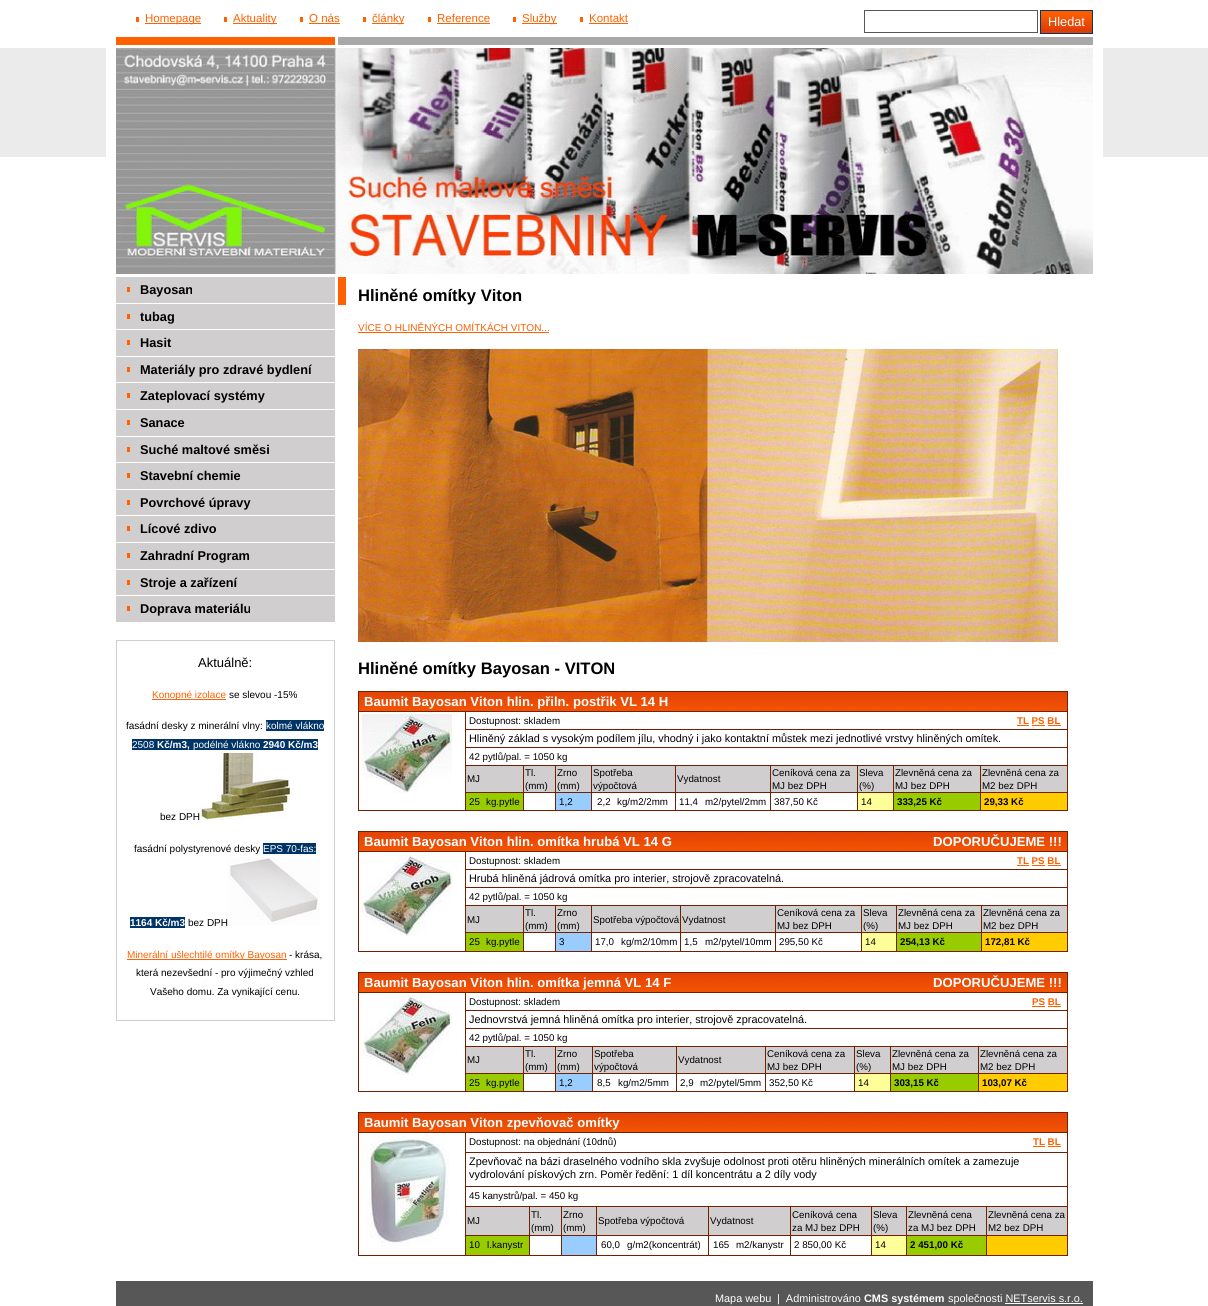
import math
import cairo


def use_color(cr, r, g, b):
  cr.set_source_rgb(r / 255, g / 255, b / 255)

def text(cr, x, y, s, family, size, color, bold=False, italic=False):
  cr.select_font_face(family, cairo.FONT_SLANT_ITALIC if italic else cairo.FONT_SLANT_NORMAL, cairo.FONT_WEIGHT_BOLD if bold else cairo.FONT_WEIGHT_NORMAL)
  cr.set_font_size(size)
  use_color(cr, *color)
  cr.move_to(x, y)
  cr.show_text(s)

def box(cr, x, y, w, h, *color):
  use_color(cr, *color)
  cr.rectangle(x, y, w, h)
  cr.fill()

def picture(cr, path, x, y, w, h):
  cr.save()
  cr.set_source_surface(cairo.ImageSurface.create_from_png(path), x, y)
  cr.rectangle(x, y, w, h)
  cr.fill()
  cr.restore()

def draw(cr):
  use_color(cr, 255, 255, 255)
  cr.paint()
  box(cr, 0, 48, 1208, 109, 235, 235, 235)
  box(cr, 106, 48, 997, 109, 255, 255, 255)
  box(cr, 136, 17, 3, 5, 255, 96, 0)
  box(cr, 145, 23, 56, 1, 255, 96, 0)
  box(cr, 224, 17, 3, 5, 255, 96, 0)
  box(cr, 233, 23, 44, 1, 255, 96, 0)
  box(cr, 300, 17, 3, 5, 255, 96, 0)
  box(cr, 309, 23, 31, 1, 255, 96, 0)
  box(cr, 363, 17, 3, 5, 255, 96, 0)
  box(cr, 372, 23, 32, 1, 255, 96, 0)
  box(cr, 428, 17, 3, 5, 255, 96, 0)
  box(cr, 437, 23, 53, 1, 255, 96, 0)
  box(cr, 513, 17, 3, 5, 255, 96, 0)
  box(cr, 522, 23, 35, 1, 255, 96, 0)
  box(cr, 580, 17, 3, 5, 255, 96, 0)
  box(cr, 589, 23, 39, 1, 255, 96, 0)
  cr.rectangle(864.5, 10.5, 173, 22)
  use_color(cr, 87, 87, 87)
  cr.set_line_width(1)
  cr.stroke()
  box(cr, 1041, 29, 51, 4, 222, 62, 6)
  picture(cr, "img_01.png", 1041, 11, 51, 18)
  cr.rectangle(1040.5, 10.5, 52, 23)
  use_color(cr, 5, 55, 101)
  cr.stroke()
  box(cr, 116, 37, 219, 8, 255, 96, 0)
  box(cr, 335, 37, 758, 8, 168, 168, 168)
  box(cr, 335, 37, 3, 8, 255, 255, 255)
  picture(cr, "img_02.png", 116, 48, 977, 226)
  box(cr, 116, 277, 219, 26, 208, 206, 206)
  box(cr, 127, 287, 3, 5, 255, 96, 0)
  box(cr, 116, 304, 219, 25, 208, 206, 206)
  box(cr, 127, 314, 3, 5, 255, 96, 0)
  box(cr, 116, 330, 219, 26, 208, 206, 206)
  box(cr, 127, 340, 3, 5, 255, 96, 0)
  box(cr, 116, 357, 219, 25, 208, 206, 206)
  box(cr, 127, 367, 3, 5, 255, 96, 0)
  box(cr, 116, 383, 219, 26, 208, 206, 206)
  box(cr, 127, 393, 3, 5, 255, 96, 0)
  box(cr, 116, 410, 219, 26, 208, 206, 206)
  box(cr, 127, 420, 3, 5, 255, 96, 0)
  box(cr, 116, 437, 219, 25, 208, 206, 206)
  box(cr, 127, 447, 3, 5, 255, 96, 0)
  box(cr, 116, 463, 219, 26, 208, 206, 206)
  box(cr, 127, 473, 3, 5, 255, 96, 0)
  box(cr, 116, 490, 219, 25, 208, 206, 206)
  box(cr, 127, 500, 3, 5, 255, 96, 0)
  box(cr, 116, 516, 219, 26, 208, 206, 206)
  box(cr, 127, 526, 3, 5, 255, 96, 0)
  box(cr, 116, 543, 219, 26, 208, 206, 206)
  box(cr, 127, 553, 3, 5, 255, 96, 0)
  box(cr, 116, 570, 219, 25, 208, 206, 206)
  box(cr, 127, 580, 3, 5, 255, 96, 0)
  box(cr, 116, 596, 219, 26, 208, 206, 206)
  box(cr, 127, 606, 3, 5, 255, 96, 0)
  cr.rectangle(116.5, 640.5, 218, 380)
  use_color(cr, 208, 206, 206)
  cr.stroke()
  box(cr, 152, 699, 74, 1, 255, 96, 0)
  box(cr, 266, 720, 58, 11, 0, 51, 102)
  box(cr, 132, 739, 186, 11, 0, 51, 102)
  picture(cr, "img_03.png", 200, 753, 90, 67)
  box(cr, 263, 843, 53, 11, 0, 51, 102)
  box(cr, 130, 917, 55, 11, 0, 51, 102)
  picture(cr, "img_04.png", 228, 857, 92, 68)
  box(cr, 127, 959, 160, 1, 255, 96, 0)
  box(cr, 338, 277, 8, 28, 255, 96, 0)
  box(cr, 358, 332, 191, 1, 255, 96, 0)
  picture(cr, "img_05.png", 358, 349, 700, 293)
  box(cr, 358, 691, 710, 1, 113, 33, 2)
  box(cr, 1067, 691, 1, 120, 113, 33, 2)
  box(cr, 358, 810, 710, 1, 113, 33, 2)
  box(cr, 358, 691, 1, 120, 113, 33, 2)
  picture(cr, "img_06.png", 359, 692, 708, 19)
  box(cr, 465, 711, 603, 1, 113, 33, 2)
  box(cr, 465, 729, 603, 1, 113, 33, 2)
  box(cr, 465, 747, 603, 1, 113, 33, 2)
  box(cr, 980, 765, 88, 1, 113, 33, 2)
  box(cr, 980, 792, 88, 1, 113, 33, 2)
  box(cr, 980, 792, 1, 19, 113, 33, 2)
  box(cr, 893, 792, 88, 1, 113, 33, 2)
  box(cr, 980, 765, 1, 28, 113, 33, 2)
  box(cr, 893, 765, 88, 1, 113, 33, 2)
  box(cr, 893, 792, 1, 19, 113, 33, 2)
  box(cr, 857, 792, 37, 1, 113, 33, 2)
  box(cr, 893, 765, 1, 28, 113, 33, 2)
  box(cr, 857, 765, 37, 1, 113, 33, 2)
  box(cr, 857, 792, 1, 19, 113, 33, 2)
  box(cr, 770, 792, 88, 1, 113, 33, 2)
  box(cr, 857, 765, 1, 28, 113, 33, 2)
  box(cr, 770, 765, 88, 1, 113, 33, 2)
  box(cr, 770, 792, 1, 19, 113, 33, 2)
  box(cr, 770, 765, 1, 28, 113, 33, 2)
  box(cr, 675, 765, 96, 1, 113, 33, 2)
  box(cr, 675, 792, 1, 19, 113, 33, 2)
  box(cr, 675, 792, 96, 1, 113, 33, 2)
  box(cr, 675, 765, 1, 28, 113, 33, 2)
  box(cr, 591, 765, 85, 1, 113, 33, 2)
  box(cr, 591, 792, 1, 19, 113, 33, 2)
  box(cr, 555, 792, 37, 1, 113, 33, 2)
  box(cr, 591, 792, 85, 1, 113, 33, 2)
  box(cr, 591, 765, 1, 28, 113, 33, 2)
  box(cr, 555, 765, 37, 1, 113, 33, 2)
  box(cr, 555, 792, 1, 19, 113, 33, 2)
  box(cr, 523, 792, 33, 1, 113, 33, 2)
  box(cr, 555, 765, 1, 28, 113, 33, 2)
  box(cr, 523, 765, 33, 1, 113, 33, 2)
  box(cr, 523, 792, 1, 19, 113, 33, 2)
  box(cr, 523, 765, 1, 28, 113, 33, 2)
  box(cr, 465, 765, 59, 1, 113, 33, 2)
  box(cr, 482, 792, 1, 19, 153, 204, 0)
  box(cr, 465, 792, 1, 19, 113, 33, 2)
  box(cr, 465, 792, 59, 1, 113, 33, 2)
  box(cr, 465, 765, 1, 28, 113, 33, 2)
  box(cr, 465, 747, 1, 19, 113, 33, 2)
  box(cr, 465, 729, 1, 19, 113, 33, 2)
  box(cr, 465, 711, 1, 19, 113, 33, 2)
  box(cr, 358, 711, 108, 1, 113, 33, 2)
  picture(cr, "img_07.png", 362, 714, 90, 79)
  box(cr, 1017, 725, 12, 1, 255, 96, 0)
  box(cr, 1032, 725, 13, 1, 255, 96, 0)
  box(cr, 1048, 725, 13, 1, 255, 96, 0)
  box(cr, 466, 766, 57, 26, 208, 206, 206)
  box(cr, 524, 766, 31, 26, 208, 206, 206)
  box(cr, 556, 766, 35, 26, 208, 206, 206)
  box(cr, 592, 766, 83, 26, 208, 206, 206)
  box(cr, 676, 766, 94, 26, 208, 206, 206)
  box(cr, 771, 766, 86, 26, 208, 206, 206)
  box(cr, 858, 766, 35, 26, 208, 206, 206)
  box(cr, 894, 766, 86, 26, 208, 206, 206)
  box(cr, 981, 766, 86, 26, 208, 206, 206)
  box(cr, 466, 793, 16, 17, 153, 204, 0)
  box(cr, 482, 810, 1, 1, 113, 33, 2)
  box(cr, 483, 793, 40, 17, 153, 204, 0)
  box(cr, 556, 793, 35, 17, 153, 204, 255)
  box(cr, 613, 810, 1, 1, 255, 255, 255)
  box(cr, 613, 810, 1, 1, 113, 33, 2)
  box(cr, 701, 810, 1, 1, 255, 255, 255)
  box(cr, 701, 810, 1, 1, 113, 33, 2)
  box(cr, 858, 793, 35, 17, 255, 255, 153)
  box(cr, 894, 793, 86, 17, 153, 204, 0)
  box(cr, 981, 793, 86, 17, 255, 204, 0)
  box(cr, 358, 831, 710, 1, 113, 33, 2)
  box(cr, 1067, 831, 1, 121, 113, 33, 2)
  box(cr, 358, 951, 710, 1, 113, 33, 2)
  box(cr, 358, 831, 1, 121, 113, 33, 2)
  picture(cr, "img_06.png", 359, 832, 708, 19)
  box(cr, 465, 851, 603, 1, 113, 33, 2)
  box(cr, 465, 869, 603, 1, 113, 33, 2)
  box(cr, 465, 887, 603, 1, 113, 33, 2)
  box(cr, 981, 905, 87, 1, 113, 33, 2)
  box(cr, 981, 932, 87, 1, 113, 33, 2)
  box(cr, 981, 932, 1, 20, 113, 33, 2)
  box(cr, 896, 932, 86, 1, 113, 33, 2)
  box(cr, 981, 905, 1, 28, 113, 33, 2)
  box(cr, 896, 905, 86, 1, 113, 33, 2)
  box(cr, 896, 932, 1, 20, 113, 33, 2)
  box(cr, 861, 932, 36, 1, 113, 33, 2)
  box(cr, 896, 905, 1, 28, 113, 33, 2)
  box(cr, 861, 905, 36, 1, 113, 33, 2)
  box(cr, 861, 932, 1, 20, 113, 33, 2)
  box(cr, 775, 932, 87, 1, 113, 33, 2)
  box(cr, 861, 905, 1, 28, 113, 33, 2)
  box(cr, 775, 905, 87, 1, 113, 33, 2)
  box(cr, 775, 932, 1, 20, 113, 33, 2)
  box(cr, 775, 905, 1, 28, 113, 33, 2)
  box(cr, 680, 905, 96, 1, 113, 33, 2)
  box(cr, 680, 932, 1, 20, 113, 33, 2)
  box(cr, 680, 932, 96, 1, 113, 33, 2)
  box(cr, 680, 905, 1, 28, 113, 33, 2)
  box(cr, 591, 905, 90, 1, 113, 33, 2)
  box(cr, 591, 932, 1, 20, 113, 33, 2)
  box(cr, 555, 932, 37, 1, 113, 33, 2)
  box(cr, 591, 932, 90, 1, 113, 33, 2)
  box(cr, 591, 905, 1, 28, 113, 33, 2)
  box(cr, 555, 905, 37, 1, 113, 33, 2)
  box(cr, 555, 932, 1, 20, 113, 33, 2)
  box(cr, 523, 932, 33, 1, 113, 33, 2)
  box(cr, 555, 905, 1, 28, 113, 33, 2)
  box(cr, 523, 905, 33, 1, 113, 33, 2)
  box(cr, 523, 932, 1, 20, 113, 33, 2)
  box(cr, 523, 905, 1, 28, 113, 33, 2)
  box(cr, 465, 905, 59, 1, 113, 33, 2)
  box(cr, 482, 932, 1, 20, 153, 204, 0)
  box(cr, 465, 932, 1, 20, 113, 33, 2)
  box(cr, 465, 932, 59, 1, 113, 33, 2)
  box(cr, 465, 905, 1, 28, 113, 33, 2)
  box(cr, 465, 887, 1, 19, 113, 33, 2)
  box(cr, 465, 869, 1, 19, 113, 33, 2)
  box(cr, 465, 851, 1, 19, 113, 33, 2)
  box(cr, 358, 851, 108, 1, 113, 33, 2)
  picture(cr, "img_08.png", 362, 854, 90, 82)
  box(cr, 1017, 865, 12, 1, 255, 96, 0)
  box(cr, 1032, 865, 13, 1, 255, 96, 0)
  box(cr, 1048, 865, 13, 1, 255, 96, 0)
  box(cr, 466, 906, 57, 26, 208, 206, 206)
  box(cr, 524, 906, 31, 26, 208, 206, 206)
  box(cr, 556, 906, 35, 26, 208, 206, 206)
  box(cr, 592, 906, 88, 26, 208, 206, 206)
  box(cr, 681, 906, 94, 26, 208, 206, 206)
  box(cr, 776, 906, 85, 26, 208, 206, 206)
  box(cr, 862, 906, 34, 26, 208, 206, 206)
  box(cr, 897, 906, 84, 26, 208, 206, 206)
  box(cr, 982, 906, 85, 26, 208, 206, 206)
  box(cr, 466, 933, 16, 18, 153, 204, 0)
  box(cr, 482, 951, 1, 1, 113, 33, 2)
  box(cr, 483, 933, 40, 18, 153, 204, 0)
  box(cr, 556, 933, 35, 18, 153, 204, 255)
  box(cr, 617, 951, 1, 1, 255, 255, 255)
  box(cr, 617, 951, 1, 1, 113, 33, 2)
  box(cr, 701, 951, 1, 1, 255, 255, 255)
  box(cr, 701, 951, 1, 1, 113, 33, 2)
  box(cr, 862, 933, 34, 18, 255, 255, 153)
  box(cr, 897, 933, 84, 18, 153, 204, 0)
  box(cr, 982, 933, 85, 18, 255, 204, 0)
  box(cr, 358, 972, 710, 1, 113, 33, 2)
  box(cr, 1067, 972, 1, 120, 113, 33, 2)
  box(cr, 358, 1091, 710, 1, 113, 33, 2)
  box(cr, 358, 972, 1, 120, 113, 33, 2)
  picture(cr, "img_06.png", 359, 973, 708, 19)
  box(cr, 465, 992, 603, 1, 113, 33, 2)
  box(cr, 465, 1010, 603, 1, 113, 33, 2)
  box(cr, 465, 1028, 603, 1, 113, 33, 2)
  box(cr, 978, 1046, 90, 1, 113, 33, 2)
  box(cr, 978, 1073, 90, 1, 113, 33, 2)
  box(cr, 978, 1073, 1, 19, 113, 33, 2)
  box(cr, 890, 1073, 89, 1, 113, 33, 2)
  box(cr, 978, 1046, 1, 28, 113, 33, 2)
  box(cr, 890, 1046, 89, 1, 113, 33, 2)
  box(cr, 890, 1073, 1, 19, 113, 33, 2)
  box(cr, 854, 1073, 37, 1, 113, 33, 2)
  box(cr, 890, 1046, 1, 28, 113, 33, 2)
  box(cr, 854, 1046, 37, 1, 113, 33, 2)
  box(cr, 854, 1073, 1, 19, 113, 33, 2)
  box(cr, 765, 1073, 90, 1, 113, 33, 2)
  box(cr, 854, 1046, 1, 28, 113, 33, 2)
  box(cr, 765, 1046, 90, 1, 113, 33, 2)
  box(cr, 765, 1073, 1, 19, 113, 33, 2)
  box(cr, 765, 1046, 1, 28, 113, 33, 2)
  box(cr, 676, 1046, 90, 1, 113, 33, 2)
  box(cr, 676, 1073, 1, 19, 113, 33, 2)
  box(cr, 676, 1073, 90, 1, 113, 33, 2)
  box(cr, 676, 1046, 1, 28, 113, 33, 2)
  box(cr, 592, 1046, 85, 1, 113, 33, 2)
  box(cr, 592, 1073, 1, 19, 113, 33, 2)
  box(cr, 555, 1073, 38, 1, 113, 33, 2)
  box(cr, 592, 1073, 85, 1, 113, 33, 2)
  box(cr, 592, 1046, 1, 28, 113, 33, 2)
  box(cr, 555, 1046, 38, 1, 113, 33, 2)
  box(cr, 555, 1073, 1, 19, 113, 33, 2)
  box(cr, 523, 1073, 33, 1, 113, 33, 2)
  box(cr, 555, 1046, 1, 28, 113, 33, 2)
  box(cr, 523, 1046, 33, 1, 113, 33, 2)
  box(cr, 523, 1073, 1, 19, 113, 33, 2)
  box(cr, 523, 1046, 1, 28, 113, 33, 2)
  box(cr, 465, 1046, 59, 1, 113, 33, 2)
  box(cr, 482, 1073, 1, 19, 153, 204, 0)
  box(cr, 465, 1073, 1, 19, 113, 33, 2)
  box(cr, 465, 1073, 59, 1, 113, 33, 2)
  box(cr, 465, 1046, 1, 28, 113, 33, 2)
  box(cr, 465, 1028, 1, 19, 113, 33, 2)
  box(cr, 465, 1010, 1, 19, 113, 33, 2)
  box(cr, 465, 992, 1, 19, 113, 33, 2)
  box(cr, 358, 992, 108, 1, 113, 33, 2)
  picture(cr, "img_09.png", 362, 995, 90, 80)
  box(cr, 1032, 1006, 13, 1, 255, 96, 0)
  box(cr, 1048, 1006, 13, 1, 255, 96, 0)
  box(cr, 466, 1047, 57, 26, 208, 206, 206)
  box(cr, 524, 1047, 31, 26, 208, 206, 206)
  box(cr, 556, 1047, 36, 26, 208, 206, 206)
  box(cr, 593, 1047, 83, 26, 208, 206, 206)
  box(cr, 677, 1047, 88, 26, 208, 206, 206)
  box(cr, 766, 1047, 88, 26, 208, 206, 206)
  box(cr, 855, 1047, 35, 26, 208, 206, 206)
  box(cr, 891, 1047, 87, 26, 208, 206, 206)
  box(cr, 979, 1047, 88, 26, 208, 206, 206)
  box(cr, 466, 1074, 16, 17, 153, 204, 0)
  box(cr, 482, 1091, 1, 1, 113, 33, 2)
  box(cr, 483, 1074, 40, 17, 153, 204, 0)
  box(cr, 556, 1074, 36, 17, 153, 204, 255)
  box(cr, 614, 1091, 1, 1, 255, 255, 255)
  box(cr, 614, 1091, 1, 1, 113, 33, 2)
  box(cr, 696, 1091, 1, 1, 255, 255, 255)
  box(cr, 696, 1091, 1, 1, 113, 33, 2)
  box(cr, 855, 1074, 35, 17, 255, 255, 153)
  box(cr, 891, 1074, 87, 17, 153, 204, 0)
  box(cr, 979, 1074, 88, 17, 255, 204, 0)
  box(cr, 358, 1112, 710, 1, 113, 33, 2)
  box(cr, 1067, 1112, 1, 144, 113, 33, 2)
  box(cr, 358, 1255, 710, 1, 113, 33, 2)
  box(cr, 358, 1112, 1, 144, 113, 33, 2)
  picture(cr, "img_06.png", 359, 1113, 708, 19)
  box(cr, 465, 1132, 603, 1, 113, 33, 2)
  box(cr, 465, 1152, 603, 1, 113, 33, 2)
  box(cr, 465, 1186, 603, 1, 113, 33, 2)
  box(cr, 986, 1206, 82, 1, 113, 33, 2)
  box(cr, 986, 1235, 82, 1, 113, 33, 2)
  box(cr, 986, 1235, 1, 21, 113, 33, 2)
  box(cr, 906, 1235, 81, 1, 113, 33, 2)
  box(cr, 986, 1206, 1, 30, 113, 33, 2)
  box(cr, 906, 1206, 81, 1, 113, 33, 2)
  box(cr, 906, 1235, 1, 21, 113, 33, 2)
  box(cr, 871, 1235, 36, 1, 113, 33, 2)
  box(cr, 906, 1206, 1, 30, 113, 33, 2)
  box(cr, 871, 1206, 36, 1, 113, 33, 2)
  box(cr, 871, 1235, 1, 21, 113, 33, 2)
  box(cr, 790, 1235, 82, 1, 113, 33, 2)
  box(cr, 871, 1206, 1, 30, 113, 33, 2)
  box(cr, 790, 1206, 82, 1, 113, 33, 2)
  box(cr, 790, 1235, 1, 21, 113, 33, 2)
  box(cr, 790, 1206, 1, 30, 113, 33, 2)
  box(cr, 708, 1206, 83, 1, 113, 33, 2)
  box(cr, 708, 1235, 1, 21, 113, 33, 2)
  box(cr, 708, 1235, 83, 1, 113, 33, 2)
  box(cr, 708, 1206, 1, 30, 113, 33, 2)
  box(cr, 596, 1206, 113, 1, 113, 33, 2)
  box(cr, 596, 1235, 1, 21, 113, 33, 2)
  box(cr, 561, 1235, 36, 1, 113, 33, 2)
  box(cr, 596, 1235, 113, 1, 113, 33, 2)
  box(cr, 596, 1206, 1, 30, 113, 33, 2)
  box(cr, 561, 1206, 36, 1, 113, 33, 2)
  box(cr, 561, 1235, 1, 21, 113, 33, 2)
  box(cr, 529, 1235, 33, 1, 113, 33, 2)
  box(cr, 561, 1206, 1, 30, 113, 33, 2)
  box(cr, 529, 1206, 33, 1, 113, 33, 2)
  box(cr, 529, 1235, 1, 21, 113, 33, 2)
  box(cr, 529, 1206, 1, 30, 113, 33, 2)
  box(cr, 465, 1206, 65, 1, 113, 33, 2)
  box(cr, 483, 1235, 1, 21, 153, 204, 0)
  box(cr, 465, 1235, 1, 21, 113, 33, 2)
  box(cr, 465, 1235, 65, 1, 113, 33, 2)
  box(cr, 465, 1206, 1, 30, 113, 33, 2)
  box(cr, 465, 1186, 1, 21, 113, 33, 2)
  box(cr, 465, 1152, 1, 35, 113, 33, 2)
  box(cr, 465, 1132, 1, 21, 113, 33, 2)
  box(cr, 358, 1132, 108, 1, 113, 33, 2)
  picture(cr, "img_10.png", 362, 1135, 88, 112)
  box(cr, 1033, 1146, 12, 1, 255, 96, 0)
  box(cr, 1048, 1146, 13, 1, 255, 96, 0)
  box(cr, 466, 1207, 63, 28, 208, 206, 206)
  box(cr, 530, 1207, 31, 28, 208, 206, 206)
  box(cr, 562, 1207, 34, 28, 208, 206, 206)
  box(cr, 597, 1207, 111, 28, 208, 206, 206)
  box(cr, 709, 1207, 81, 28, 208, 206, 206)
  box(cr, 791, 1207, 80, 28, 208, 206, 206)
  box(cr, 872, 1207, 34, 28, 208, 206, 206)
  box(cr, 907, 1207, 79, 28, 208, 206, 206)
  box(cr, 987, 1207, 80, 28, 208, 206, 206)
  box(cr, 466, 1236, 17, 19, 153, 204, 0)
  box(cr, 483, 1255, 1, 1, 113, 33, 2)
  box(cr, 484, 1236, 45, 19, 153, 204, 0)
  box(cr, 562, 1236, 34, 19, 153, 204, 255)
  box(cr, 623, 1255, 1, 1, 255, 255, 255)
  box(cr, 623, 1255, 1, 1, 113, 33, 2)
  box(cr, 732, 1255, 1, 1, 255, 255, 255)
  box(cr, 732, 1255, 1, 1, 113, 33, 2)
  box(cr, 872, 1236, 34, 19, 255, 255, 153)
  box(cr, 907, 1236, 79, 19, 153, 204, 0)
  box(cr, 987, 1236, 80, 19, 255, 204, 0)
  box(cr, 116, 1281, 977, 25, 87, 87, 87)
  box(cr, 1005, 1303, 78, 1, 255, 255, 255)
  text(cr, 145, 22, "Homepage", "Liberation Sans", 11.5, (255, 96, 0))
  text(cr, 233, 22, "Aktuality", "Liberation Sans", 11.5, (255, 96, 0))
  text(cr, 309, 22, "O nás", "Liberation Sans", 11.5, (255, 96, 0))
  text(cr, 372, 22, "články", "Liberation Sans", 11.5, (255, 96, 0))
  text(cr, 437, 22, "Reference", "Liberation Sans", 11.5, (255, 96, 0))
  text(cr, 522, 22, "Služby", "Liberation Sans", 11.5, (255, 96, 0))
  text(cr, 589, 22, "Kontakt", "Liberation Sans", 11.5, (255, 96, 0))
  text(cr, 1048, 26, "Hledat", "Liberation Sans", 12.75, (255, 255, 255))
  text(cr, 140, 294, "Bayosan", "Liberation Sans", 12.75, (0, 0, 0), bold=True)
  text(cr, 140, 321, "tubag", "Liberation Sans", 12.75, (0, 0, 0), bold=True)
  text(cr, 140, 347, "Hasit", "Liberation Sans", 12.75, (0, 0, 0), bold=True)
  text(cr, 140, 374, "Materiály pro zdravé bydlení", "Liberation Sans", 12.75, (0, 0, 0), bold=True)
  text(cr, 140, 400, "Zateplovací systémy", "Liberation Sans", 12.75, (0, 0, 0), bold=True)
  text(cr, 140, 427, "Sanace", "Liberation Sans", 12.75, (0, 0, 0), bold=True)
  text(cr, 140, 454, "Suché maltové směsi", "Liberation Sans", 12.75, (0, 0, 0), bold=True)
  text(cr, 140, 480, "Stavební chemie", "Liberation Sans", 12.75, (0, 0, 0), bold=True)
  text(cr, 140, 507, "Povrchové úpravy", "Liberation Sans", 12.75, (0, 0, 0), bold=True)
  text(cr, 140, 533, "Lícové zdivo", "Liberation Sans", 12.75, (0, 0, 0), bold=True)
  text(cr, 140, 560, "Zahradní Program", "Liberation Sans", 12.75, (0, 0, 0), bold=True)
  text(cr, 140, 587, "Stroje a zařízení", "Liberation Sans", 12.75, (0, 0, 0), bold=True)
  text(cr, 140, 613, "Doprava materiálu", "Liberation Sans", 12.75, (0, 0, 0), bold=True)
  text(cr, 198, 667, "Aktuálně:", "Liberation Sans", 13, (0, 0, 0))
  text(cr, 152, 698, "Konopné izolace", "Liberation Sans", 10, (255, 96, 0))
  text(cr, 229, 698, "se slevou -15%", "Liberation Sans", 10, (0, 0, 0))
  text(cr, 126, 729, "fasádní desky z minerální vlny:", "Liberation Sans", 10, (0, 0, 0))
  text(cr, 266, 729, "kolmé vlákno", "Liberation Sans", 10, (255, 255, 255))
  text(cr, 132, 748, "2508", "Liberation Sans", 10, (255, 255, 255))
  text(cr, 157, 748, "Kč/m3,", "Liberation Sans", 10, (255, 255, 255), bold=True)
  text(cr, 193, 748, "podélné vlákno", "Liberation Sans", 10, (255, 255, 255))
  text(cr, 263, 748, "2940 Kč/m3", "Liberation Sans", 10, (255, 255, 255), bold=True)
  text(cr, 160, 820, "bez DPH", "Liberation Sans", 10, (0, 0, 0))
  text(cr, 134, 852, "fasádní polystyrenové desky", "Liberation Sans", 10, (0, 0, 0))
  text(cr, 263, 852, "EPS 70-fas:", "Liberation Sans", 10, (255, 255, 255))
  text(cr, 130, 926, "1164 Kč/m3", "Liberation Sans", 10, (255, 255, 255), bold=True)
  text(cr, 188, 926, "bez DPH", "Liberation Sans", 10, (0, 0, 0))
  text(cr, 127, 958, "Minerální ušlechtilé omítky Bayosan", "Liberation Sans", 10, (255, 96, 0))
  text(cr, 289, 958, "- krása,", "Liberation Sans", 10, (0, 0, 0))
  text(cr, 136, 976, "která nezevšední - pro výjimečný vzhled", "Liberation Sans", 10, (0, 0, 0))
  text(cr, 150, 995, "Vašeho domu. Za vynikající cenu.", "Liberation Sans", 10, (0, 0, 0))
  text(cr, 358, 301, "Hliněné omítky Viton", "Liberation Sans", 16.6, (0, 0, 0), bold=True)
  text(cr, 358, 331, "VÍCE O HLINĚNÝCH OMÍTKÁCH VITON...", "Liberation Sans", 10, (255, 96, 0))
  text(cr, 358, 674, "Hliněné omítky Bayosan - VITON", "Liberation Sans", 16.6, (0, 0, 0), bold=True)
  text(cr, 364, 706, "Baumit Bayosan Viton hlin. přiln. postřik VL 14 H", "Liberation Sans", 13.1, (255, 255, 255), bold=True)
  text(cr, 469, 724, "Dostupnost: skladem", "Liberation Sans", 9.75, (0, 0, 0))
  text(cr, 1017, 724, "TL PS BL", "Liberation Sans", 9.75, (255, 96, 0), bold=True)
  text(cr, 469, 742, "Hliněný základ s vysokým podílem jílu, vhodný i jako kontaktní můstek mezi jednotlivé vrstvy hliněných omítek.", "Liberation Sans", 10.88, (0, 0, 0))
  text(cr, 469, 760, "42 pytlů/pal. = 1050 kg", "Liberation Sans", 9.75, (0, 0, 0))
  text(cr, 467, 782, "MJ", "Liberation Sans", 9.75, (0, 0, 0))
  text(cr, 525, 776, "Tl.", "Liberation Sans", 9.75, (0, 0, 0))
  text(cr, 525, 789, "(mm)", "Liberation Sans", 9.75, (0, 0, 0))
  text(cr, 557, 776, "Zrno", "Liberation Sans", 9.75, (0, 0, 0))
  text(cr, 557, 789, "(mm)", "Liberation Sans", 9.75, (0, 0, 0))
  text(cr, 593, 776, "Spotřeba", "Liberation Sans", 9.75, (0, 0, 0))
  text(cr, 593, 789, "výpočtová", "Liberation Sans", 9.75, (0, 0, 0))
  text(cr, 677, 782, "Vydatnost", "Liberation Sans", 9.75, (0, 0, 0))
  text(cr, 772, 776, "Ceníková cena za", "Liberation Sans", 9.75, (0, 0, 0))
  text(cr, 772, 789, "MJ bez DPH", "Liberation Sans", 9.75, (0, 0, 0))
  text(cr, 859, 776, "Sleva", "Liberation Sans", 9.75, (0, 0, 0))
  text(cr, 859, 789, "(%)", "Liberation Sans", 9.75, (0, 0, 0))
  text(cr, 895, 776, "Zlevněná cena za", "Liberation Sans", 9.75, (0, 0, 0))
  text(cr, 895, 789, "MJ bez DPH", "Liberation Sans", 9.75, (0, 0, 0))
  text(cr, 982, 776, "Zlevněná cena za", "Liberation Sans", 9.75, (0, 0, 0))
  text(cr, 982, 789, "M2 bez DPH", "Liberation Sans", 9.75, (0, 0, 0))
  text(cr, 469, 805, "25", "Liberation Sans", 9.75, (0, 0, 0))
  text(cr, 486, 805, "kg.pytle", "Liberation Sans", 9.75, (0, 0, 0))
  text(cr, 559, 805, "1,2", "Liberation Sans", 9.75, (0, 0, 0))
  text(cr, 597, 805, "2,2", "Liberation Sans", 9.75, (0, 0, 0))
  text(cr, 617, 805, "kg/m2/2mm", "Liberation Sans", 9.75, (0, 0, 0))
  text(cr, 679, 805, "11,4", "Liberation Sans", 9.75, (0, 0, 0))
  text(cr, 705, 805, "m2/pytel/2mm", "Liberation Sans", 9.75, (0, 0, 0))
  text(cr, 774, 805, "387,50 Kč", "Liberation Sans", 9.75, (0, 0, 0))
  text(cr, 861, 805, "14", "Liberation Sans", 9.75, (0, 0, 0))
  text(cr, 897, 805, "333,25 Kč", "Liberation Sans", 9.75, (0, 0, 0), bold=True)
  text(cr, 984, 805, "29,33 Kč", "Liberation Sans", 9.75, (0, 0, 0), bold=True)
  text(cr, 364, 846, "Baumit Bayosan Viton hlin. omítka hrubá VL 14 G", "Liberation Sans", 13.1, (255, 255, 255), bold=True)
  text(cr, 933, 846, "DOPORUČUJEME !!!", "Liberation Sans", 13.1, (255, 255, 255), bold=True)
  text(cr, 469, 864, "Dostupnost: skladem", "Liberation Sans", 9.75, (0, 0, 0))
  text(cr, 1017, 864, "TL PS BL", "Liberation Sans", 9.75, (255, 96, 0), bold=True)
  text(cr, 469, 882, "Hrubá hliněná jádrová omítka pro interier, strojově zpracovatelná.", "Liberation Sans", 10.88, (0, 0, 0))
  text(cr, 469, 900, "42 pytlů/pal. = 1050 kg", "Liberation Sans", 9.75, (0, 0, 0))
  text(cr, 467, 923, "MJ", "Liberation Sans", 9.75, (0, 0, 0))
  text(cr, 525, 916, "Tl.", "Liberation Sans", 9.75, (0, 0, 0))
  text(cr, 525, 929, "(mm)", "Liberation Sans", 9.75, (0, 0, 0))
  text(cr, 557, 916, "Zrno", "Liberation Sans", 9.75, (0, 0, 0))
  text(cr, 557, 929, "(mm)", "Liberation Sans", 9.75, (0, 0, 0))
  text(cr, 593, 923, "Spotřeba výpočtová", "Liberation Sans", 9.75, (0, 0, 0))
  text(cr, 682, 923, "Vydatnost", "Liberation Sans", 9.75, (0, 0, 0))
  text(cr, 777, 916, "Ceníková cena za", "Liberation Sans", 9.75, (0, 0, 0))
  text(cr, 777, 929, "MJ bez DPH", "Liberation Sans", 9.75, (0, 0, 0))
  text(cr, 863, 916, "Sleva", "Liberation Sans", 9.75, (0, 0, 0))
  text(cr, 863, 929, "(%)", "Liberation Sans", 9.75, (0, 0, 0))
  text(cr, 898, 916, "Zlevněná cena za", "Liberation Sans", 9.75, (0, 0, 0))
  text(cr, 898, 929, "MJ bez DPH", "Liberation Sans", 9.75, (0, 0, 0))
  text(cr, 983, 916, "Zlevněná cena za", "Liberation Sans", 9.75, (0, 0, 0))
  text(cr, 983, 929, "M2 bez DPH", "Liberation Sans", 9.75, (0, 0, 0))
  text(cr, 469, 945, "25", "Liberation Sans", 9.75, (0, 0, 0))
  text(cr, 486, 945, "kg.pytle", "Liberation Sans", 9.75, (0, 0, 0))
  text(cr, 559, 945, "3", "Liberation Sans", 9.75, (0, 0, 0))
  text(cr, 595, 945, "17,0", "Liberation Sans", 9.75, (0, 0, 0))
  text(cr, 621, 945, "kg/m2/10mm", "Liberation Sans", 9.75, (0, 0, 0))
  text(cr, 684, 945, "1,5", "Liberation Sans", 9.75, (0, 0, 0))
  text(cr, 705, 945, "m2/pytel/10mm", "Liberation Sans", 9.75, (0, 0, 0))
  text(cr, 779, 945, "295,50 Kč", "Liberation Sans", 9.75, (0, 0, 0))
  text(cr, 865, 945, "14", "Liberation Sans", 9.75, (0, 0, 0))
  text(cr, 900, 945, "254,13 Kč", "Liberation Sans", 9.75, (0, 0, 0), bold=True)
  text(cr, 985, 945, "172,81 Kč", "Liberation Sans", 9.75, (0, 0, 0), bold=True)
  text(cr, 364, 987, "Baumit Bayosan Viton hlin. omítka jemná VL 14 F", "Liberation Sans", 13.1, (255, 255, 255), bold=True)
  text(cr, 933, 987, "DOPORUČUJEME !!!", "Liberation Sans", 13.1, (255, 255, 255), bold=True)
  text(cr, 469, 1005, "Dostupnost: skladem", "Liberation Sans", 9.75, (0, 0, 0))
  text(cr, 1032, 1005, "PS BL", "Liberation Sans", 9.75, (255, 96, 0), bold=True)
  text(cr, 469, 1023, "Jednovrstvá jemná hliněná omítka pro interier, strojově zpracovatelná.", "Liberation Sans", 10.88, (0, 0, 0))
  text(cr, 469, 1041, "42 pytlů/pal. = 1050 kg", "Liberation Sans", 9.75, (0, 0, 0))
  text(cr, 467, 1063, "MJ", "Liberation Sans", 9.75, (0, 0, 0))
  text(cr, 525, 1057, "Tl.", "Liberation Sans", 9.75, (0, 0, 0))
  text(cr, 525, 1070, "(mm)", "Liberation Sans", 9.75, (0, 0, 0))
  text(cr, 557, 1057, "Zrno", "Liberation Sans", 9.75, (0, 0, 0))
  text(cr, 557, 1070, "(mm)", "Liberation Sans", 9.75, (0, 0, 0))
  text(cr, 594, 1057, "Spotřeba", "Liberation Sans", 9.75, (0, 0, 0))
  text(cr, 594, 1070, "výpočtová", "Liberation Sans", 9.75, (0, 0, 0))
  text(cr, 678, 1063, "Vydatnost", "Liberation Sans", 9.75, (0, 0, 0))
  text(cr, 767, 1057, "Ceníková cena za", "Liberation Sans", 9.75, (0, 0, 0))
  text(cr, 767, 1070, "MJ bez DPH", "Liberation Sans", 9.75, (0, 0, 0))
  text(cr, 856, 1057, "Sleva", "Liberation Sans", 9.75, (0, 0, 0))
  text(cr, 856, 1070, "(%)", "Liberation Sans", 9.75, (0, 0, 0))
  text(cr, 892, 1057, "Zlevněná cena za", "Liberation Sans", 9.75, (0, 0, 0))
  text(cr, 892, 1070, "MJ bez DPH", "Liberation Sans", 9.75, (0, 0, 0))
  text(cr, 980, 1057, "Zlevněná cena za", "Liberation Sans", 9.75, (0, 0, 0))
  text(cr, 980, 1070, "M2 bez DPH", "Liberation Sans", 9.75, (0, 0, 0))
  text(cr, 469, 1086, "25", "Liberation Sans", 9.75, (0, 0, 0))
  text(cr, 486, 1086, "kg.pytle", "Liberation Sans", 9.75, (0, 0, 0))
  text(cr, 559, 1086, "1,2", "Liberation Sans", 9.75, (0, 0, 0))
  text(cr, 597, 1086, "8,5", "Liberation Sans", 9.75, (0, 0, 0))
  text(cr, 618, 1086, "kg/m2/5mm", "Liberation Sans", 9.75, (0, 0, 0))
  text(cr, 680, 1086, "2,9", "Liberation Sans", 9.75, (0, 0, 0))
  text(cr, 700, 1086, "m2/pytel/5mm", "Liberation Sans", 9.75, (0, 0, 0))
  text(cr, 769, 1086, "352,50 Kč", "Liberation Sans", 9.75, (0, 0, 0))
  text(cr, 858, 1086, "14", "Liberation Sans", 9.75, (0, 0, 0))
  text(cr, 894, 1086, "303,15 Kč", "Liberation Sans", 9.75, (0, 0, 0), bold=True)
  text(cr, 982, 1086, "103,07 Kč", "Liberation Sans", 9.75, (0, 0, 0), bold=True)
  text(cr, 364, 1127, "Baumit Bayosan Viton zpevňovač omítky", "Liberation Sans", 13.1, (255, 255, 255), bold=True)
  text(cr, 469, 1145, "Dostupnost: na objednání (10dnů)", "Liberation Sans", 9.75, (0, 0, 0))
  text(cr, 1033, 1145, "TL BL", "Liberation Sans", 9.75, (255, 96, 0), bold=True)
  text(cr, 469, 1165, "Zpevňovač na bázi draselného vodního skla zvyšuje odolnost proti otěru hliněných minerálních omítek a zamezuje", "Liberation Sans", 10.88, (0, 0, 0))
  text(cr, 469, 1178, "vydrolování pískových zrn. Poměr ředění: 1 díl koncentrátu a 2 díly vody", "Liberation Sans", 10.88, (0, 0, 0))
  text(cr, 469, 1199, "45 kanystrů/pal. = 450 kg", "Liberation Sans", 9.75, (0, 0, 0))
  text(cr, 467, 1224, "MJ", "Liberation Sans", 9.75, (0, 0, 0))
  text(cr, 531, 1218, "Tl.", "Liberation Sans", 9.75, (0, 0, 0))
  text(cr, 531, 1231, "(mm)", "Liberation Sans", 9.75, (0, 0, 0))
  text(cr, 563, 1218, "Zrno", "Liberation Sans", 9.75, (0, 0, 0))
  text(cr, 563, 1231, "(mm)", "Liberation Sans", 9.75, (0, 0, 0))
  text(cr, 598, 1224, "Spotřeba výpočtová", "Liberation Sans", 9.75, (0, 0, 0))
  text(cr, 710, 1224, "Vydatnost", "Liberation Sans", 9.75, (0, 0, 0))
  text(cr, 792, 1218, "Ceníková cena", "Liberation Sans", 9.75, (0, 0, 0))
  text(cr, 792, 1231, "za MJ bez DPH", "Liberation Sans", 9.75, (0, 0, 0))
  text(cr, 873, 1218, "Sleva", "Liberation Sans", 9.75, (0, 0, 0))
  text(cr, 873, 1231, "(%)", "Liberation Sans", 9.75, (0, 0, 0))
  text(cr, 908, 1218, "Zlevněná cena", "Liberation Sans", 9.75, (0, 0, 0))
  text(cr, 908, 1231, "za MJ bez DPH", "Liberation Sans", 9.75, (0, 0, 0))
  text(cr, 988, 1218, "Zlevněná cena za", "Liberation Sans", 9.75, (0, 0, 0))
  text(cr, 988, 1231, "M2 bez DPH", "Liberation Sans", 9.75, (0, 0, 0))
  text(cr, 469, 1248, "10", "Liberation Sans", 9.75, (0, 0, 0))
  text(cr, 487, 1248, "l.kanystr", "Liberation Sans", 9.75, (0, 0, 0))
  text(cr, 601, 1248, "60,0", "Liberation Sans", 9.75, (0, 0, 0))
  text(cr, 627, 1248, "g/m2(koncentrát)", "Liberation Sans", 9.75, (0, 0, 0))
  text(cr, 713, 1248, "165", "Liberation Sans", 9.75, (0, 0, 0))
  text(cr, 736, 1248, "m2/kanystr", "Liberation Sans", 9.75, (0, 0, 0))
  text(cr, 794, 1248, "2 850,00 Kč", "Liberation Sans", 9.75, (0, 0, 0))
  text(cr, 875, 1248, "14", "Liberation Sans", 9.75, (0, 0, 0))
  text(cr, 910, 1248, "2 451,00 Kč", "Liberation Sans", 9.75, (0, 0, 0), bold=True)
  text(cr, 715, 1302, "Mapa webu", "Liberation Sans", 10.88, (255, 255, 255))
  text(cr, 777, 1302, "|  Administrováno", "Liberation Sans", 10.88, (255, 255, 255))
  text(cr, 864, 1302, "CMS systémem", "Liberation Sans", 10.88, (255, 255, 255), bold=True)
  text(cr, 948, 1302, "společnosti NETservis s.r.o.", "Liberation Sans", 10.88, (255, 255, 255))


surface = cairo.ImageSurface(cairo.FORMAT_RGB24, 1208, 1306)
cr = cairo.Context(surface)
options = cairo.FontOptions()
options.set_hint_metrics(cairo.HINT_METRICS_OFF)
options.set_hint_style(cairo.HINT_STYLE_NONE)
cr.set_font_options(options)
cr.set_miter_limit(4)
draw(cr)
surface.write_to_png("out.png")
